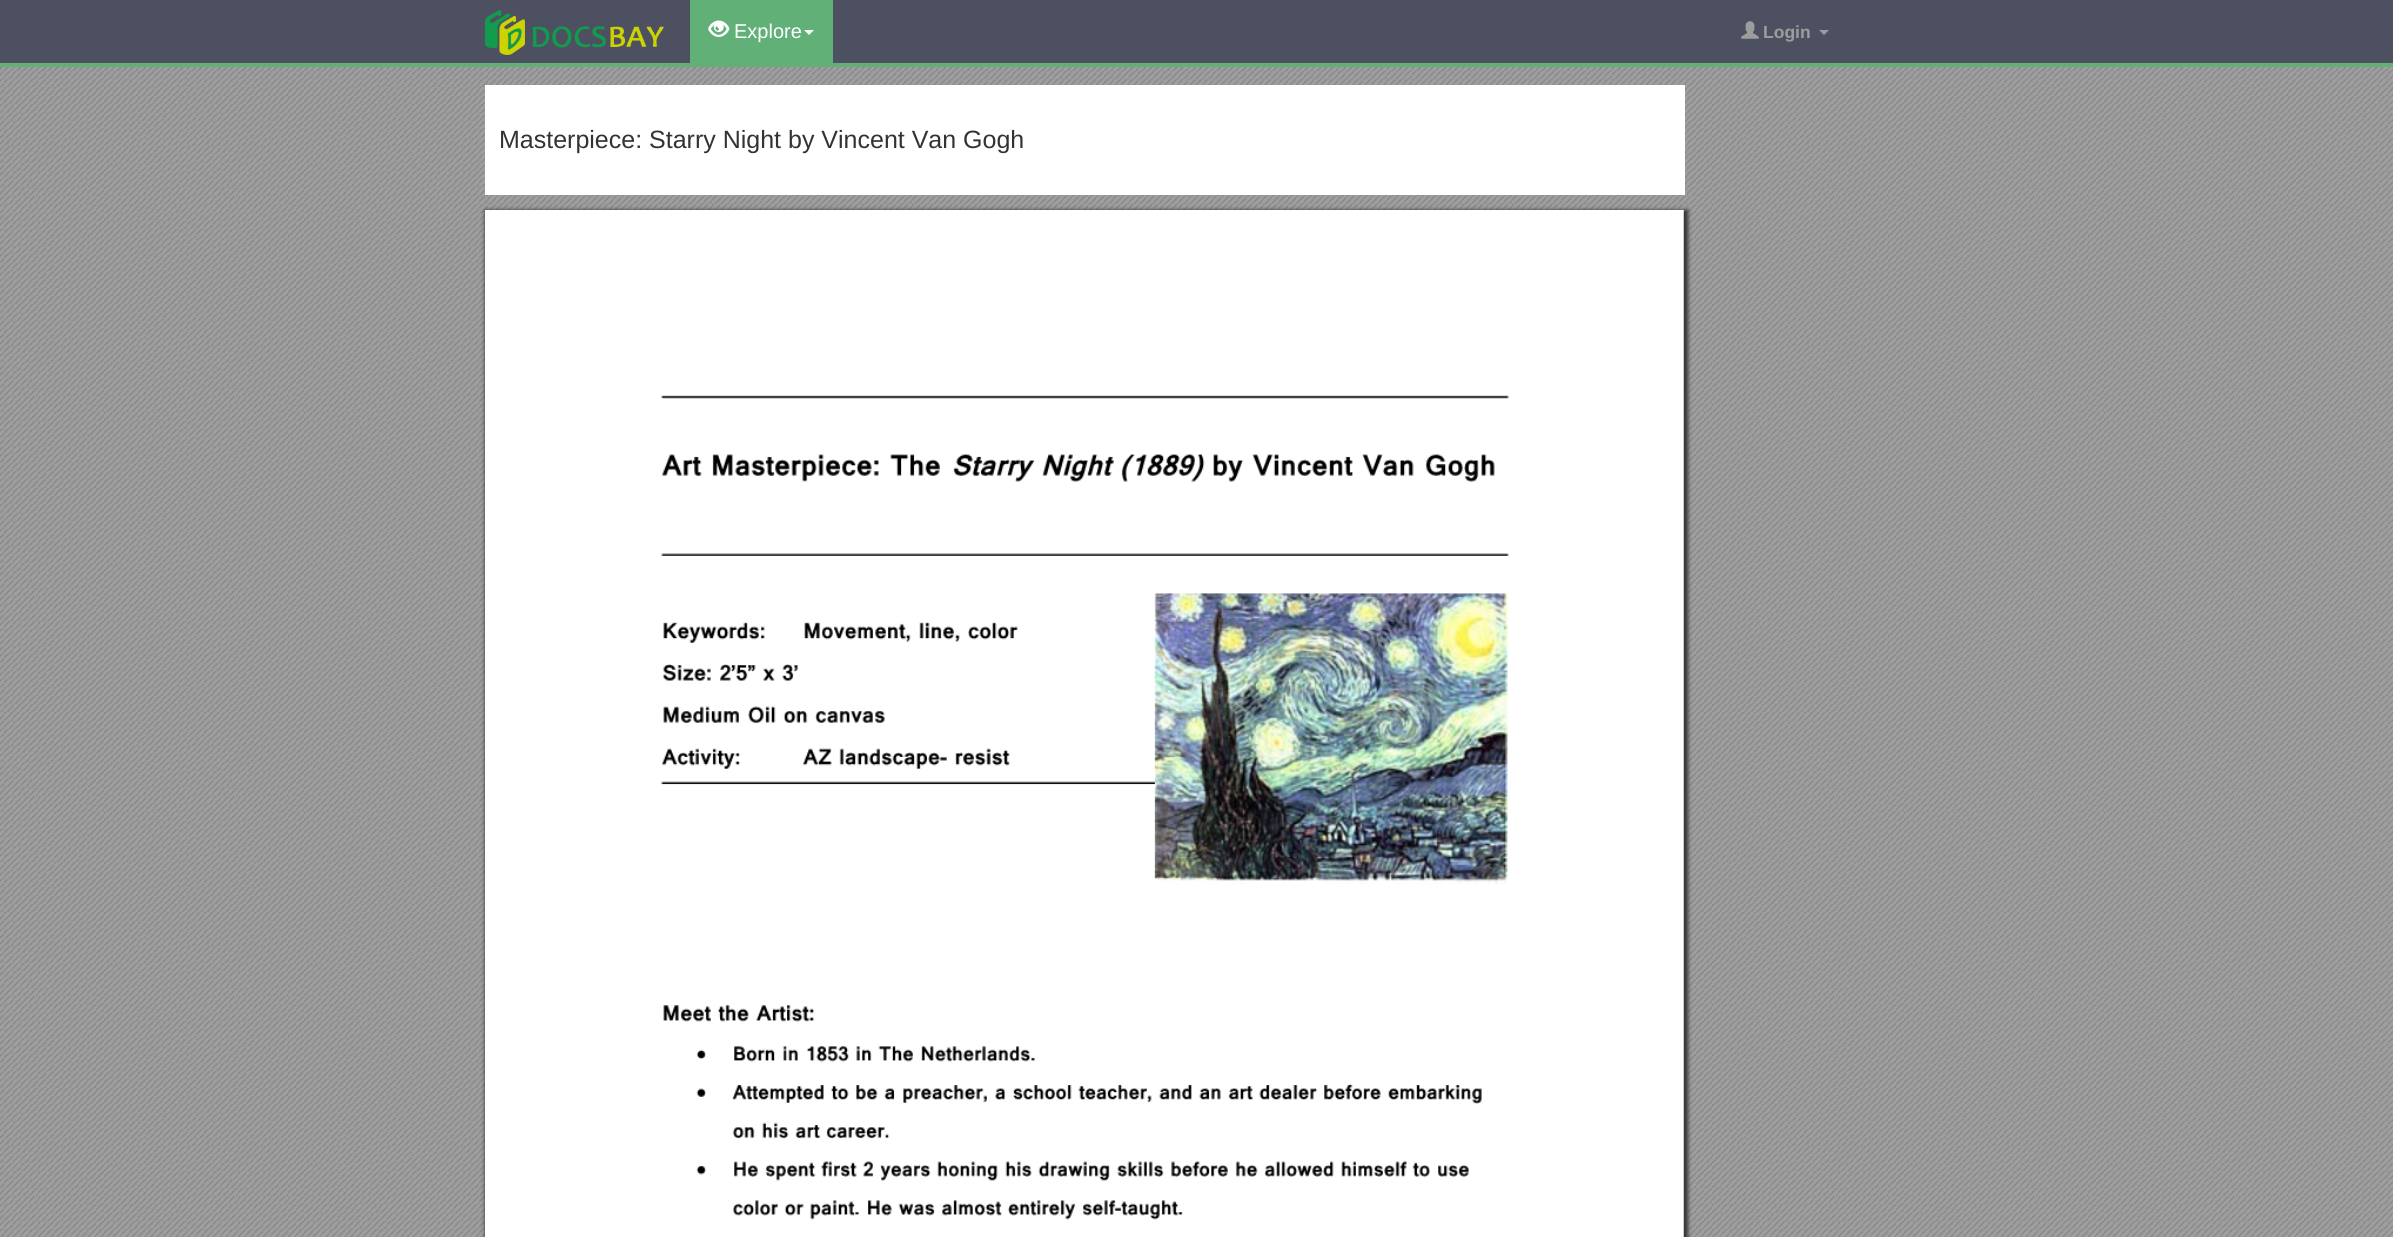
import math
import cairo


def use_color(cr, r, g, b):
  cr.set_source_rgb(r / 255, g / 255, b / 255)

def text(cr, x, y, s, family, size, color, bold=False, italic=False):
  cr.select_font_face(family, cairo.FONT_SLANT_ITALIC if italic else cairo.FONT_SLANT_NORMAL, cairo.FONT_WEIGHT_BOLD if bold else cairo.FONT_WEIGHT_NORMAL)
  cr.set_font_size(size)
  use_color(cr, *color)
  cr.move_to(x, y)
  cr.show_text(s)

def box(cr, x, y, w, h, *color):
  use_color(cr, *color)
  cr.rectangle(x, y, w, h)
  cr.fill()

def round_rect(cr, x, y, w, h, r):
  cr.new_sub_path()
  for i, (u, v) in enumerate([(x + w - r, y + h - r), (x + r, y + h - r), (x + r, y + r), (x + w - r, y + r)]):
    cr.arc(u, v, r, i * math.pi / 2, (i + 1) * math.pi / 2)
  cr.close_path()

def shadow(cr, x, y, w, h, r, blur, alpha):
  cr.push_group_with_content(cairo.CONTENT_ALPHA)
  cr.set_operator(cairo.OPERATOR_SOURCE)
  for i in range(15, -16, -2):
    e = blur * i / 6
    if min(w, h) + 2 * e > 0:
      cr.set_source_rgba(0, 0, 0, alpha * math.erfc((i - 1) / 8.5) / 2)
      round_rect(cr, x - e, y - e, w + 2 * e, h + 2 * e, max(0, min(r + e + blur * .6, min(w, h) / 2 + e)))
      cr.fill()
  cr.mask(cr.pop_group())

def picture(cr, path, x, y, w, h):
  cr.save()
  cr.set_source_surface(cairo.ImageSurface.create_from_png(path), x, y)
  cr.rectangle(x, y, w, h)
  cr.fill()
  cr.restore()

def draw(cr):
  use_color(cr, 255, 255, 255)
  cr.paint()
  picture(cr, "img_01.png", 0, 67, 2393, 1170)
  box(cr, 0, 0, 2393, 63, 77, 80, 97)
  box(cr, 0, 63, 2393, 4, 96, 176, 120)
  picture(cr, "img_02.png", 485, 10, 179, 45)
  box(cr, 690, 0, 143, 63, 96, 176, 120)
  picture(cr, "img_03.png", 708, 20, 22, 17)
  use_color(cr, 255, 255, 255)
  cr.new_path()
  cr.move_to(804, 30)
  cr.line_to(814, 30)
  cr.line_to(809, 35)
  cr.close_path()
  cr.fill()
  picture(cr, "img_04.png", 1741, 21, 18, 18)
  use_color(cr, 157, 157, 157)
  cr.new_path()
  cr.move_to(1819, 30)
  cr.line_to(1829, 30)
  cr.line_to(1824, 35)
  cr.close_path()
  cr.fill()
  box(cr, 485, 85, 1200, 110, 255, 255, 255)
  picture(cr, "img_05.png", 1683, 210, 2, 1027)
  use_color(cr, 51, 51, 51)
  shadow(cr, 485, 210, 1203, 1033, 0, 2, 1)
  picture(cr, "img_06.png", 485, 210, 1199, 1027)
  text(cr, 734, 38, "Explore", "Liberation Sans", 20, (255, 255, 255))
  text(cr, 1763, 38, "Login", "Liberation Sans", 17.5, (157, 157, 157), bold=True)
  text(cr, 499, 148, "Masterpiece: Starry Night by Vincent Van Gogh", "Liberation Sans", 25, (51, 51, 51))


surface = cairo.ImageSurface(cairo.FORMAT_RGB24, 2393, 1237)
cr = cairo.Context(surface)
options = cairo.FontOptions()
options.set_hint_metrics(cairo.HINT_METRICS_OFF)
options.set_hint_style(cairo.HINT_STYLE_NONE)
cr.set_font_options(options)
cr.set_miter_limit(4)
draw(cr)
surface.write_to_png("out.png")
